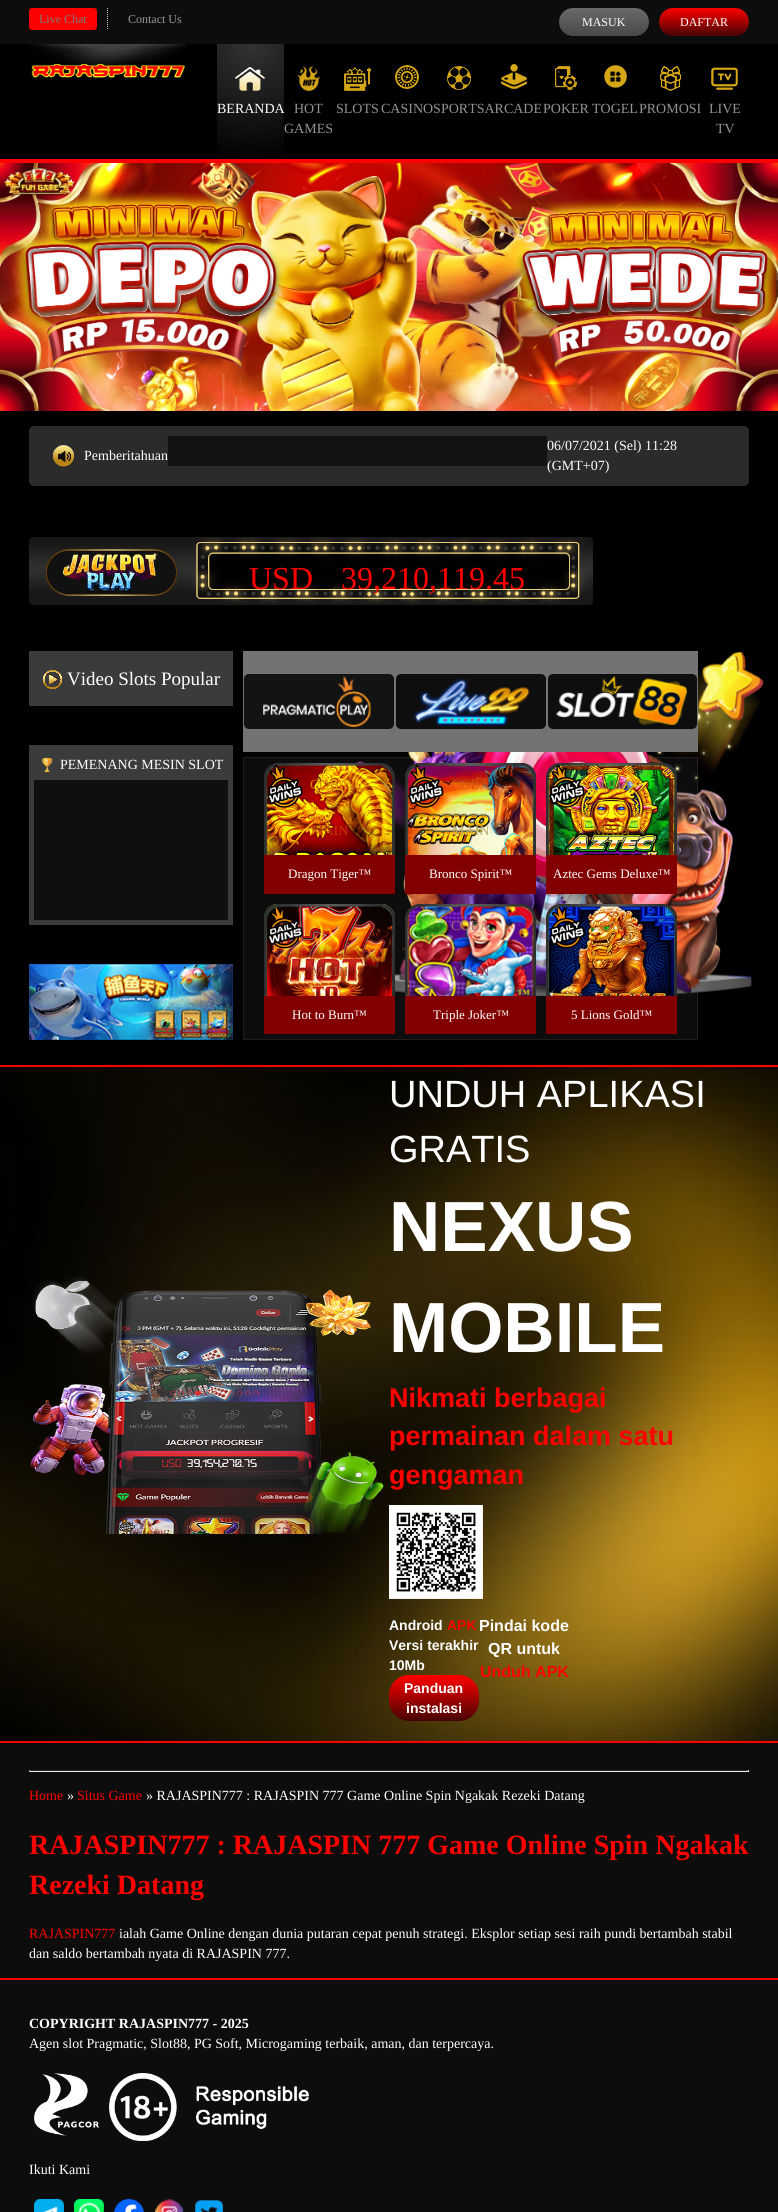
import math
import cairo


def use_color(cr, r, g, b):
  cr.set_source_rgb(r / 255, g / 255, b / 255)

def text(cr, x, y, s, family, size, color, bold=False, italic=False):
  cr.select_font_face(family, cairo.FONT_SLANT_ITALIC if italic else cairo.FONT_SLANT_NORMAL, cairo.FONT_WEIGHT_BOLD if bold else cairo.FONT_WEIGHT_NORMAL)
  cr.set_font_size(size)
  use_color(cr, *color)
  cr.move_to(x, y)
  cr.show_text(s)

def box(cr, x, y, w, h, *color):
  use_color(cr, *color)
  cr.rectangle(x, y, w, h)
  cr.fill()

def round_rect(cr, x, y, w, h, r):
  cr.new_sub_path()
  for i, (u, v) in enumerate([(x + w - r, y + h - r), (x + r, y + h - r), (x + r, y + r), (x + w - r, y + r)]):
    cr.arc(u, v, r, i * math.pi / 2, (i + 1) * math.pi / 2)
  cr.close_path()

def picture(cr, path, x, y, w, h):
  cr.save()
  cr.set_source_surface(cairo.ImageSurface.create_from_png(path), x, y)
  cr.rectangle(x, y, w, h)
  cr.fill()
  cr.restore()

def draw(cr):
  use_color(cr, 13, 13, 13)
  cr.paint()
  use_color(cr, 255, 0, 0)
  round_rect(cr, 29, 8, 68, 22, 3)
  cr.fill()
  cr.new_path()
  cr.move_to(107.5, 8)
  cr.line_to(107.5, 30)
  use_color(cr, 204, 204, 204)
  cr.set_line_width(1)
  cr.set_dash([1, 1])
  cr.stroke()
  gradient = cairo.LinearGradient(604, 8, 604, 36)
  gradient.add_color_stop_rgba(0, 0.416, 0.416, 0.416, 1)
  gradient.add_color_stop_rgba(1, 0.282, 0.282, 0.282, 1)
  cr.set_source(gradient)
  round_rect(cr, 559, 8, 90, 28, 14)
  cr.fill()
  gradient = cairo.LinearGradient(704, 8, 704, 36)
  gradient.add_color_stop_rgba(0, 1, 0, 0, 1)
  gradient.add_color_stop_rgba(1, 0.278, 0.012, 0.012, 1)
  cr.set_source(gradient)
  round_rect(cr, 659, 8, 90, 28, 14)
  cr.fill()
  box(cr, 0, 44, 778, 115, 0, 0, 0)
  box(cr, 0, 159, 778, 4, 255, 0, 0)
  picture(cr, "img_01.png", 29, 44, 158, 22)
  picture(cr, "img_02.png", 31, 63, 155, 15)
  picture(cr, "img_03.png", 447, 66, 24, 24)
  picture(cr, "img_04.png", 501, 64, 26, 25)
  gradient = cairo.RadialGradient(251, 44, 0, 251, 44, 120)
  gradient.add_color_stop_rgba(0, 0.2, 0.2, 0.2, 1)
  gradient.add_color_stop_rgba(1, 0, 0, 0, 1)
  cr.set_source(gradient)
  cr.rectangle(217, 44, 67, 114)
  cr.fill()
  picture(cr, "img_05.png", 235, 67, 30, 24)
  picture(cr, "img_06.png", 297, 66, 23, 25)
  picture(cr, "img_07.png", 344, 67, 27, 24)
  picture(cr, "img_08.png", 395, 65, 24, 24)
  picture(cr, "img_09.png", 555, 66, 22, 24)
  picture(cr, "img_10.png", 604, 65, 23, 23)
  picture(cr, "img_11.png", 660, 66, 21, 25)
  picture(cr, "img_12.png", 711, 67, 27, 23)
  picture(cr, "img_13.png", 0, 163, 778, 248)
  box(cr, 0, 411, 778, 654, 0, 0, 0)
  box(cr, 0, 1065, 778, 2, 255, 0, 0)
  use_color(cr, 43, 43, 43)
  round_rect(cr, 29, 426, 720, 60, 5)
  cr.fill()
  picture(cr, "img_14.png", 53, 445, 21, 22)
  box(cr, 168, 436, 379, 30, 19, 18, 18)
  picture(cr, "img_15.png", 29, 537, 564, 68)
  box(cr, 29, 651, 204, 55, 59, 59, 59)
  picture(cr, "img_16.png", 43, 670, 19, 19)
  box(cr, 29, 745, 204, 180, 59, 59, 59)
  picture(cr, "img_17.png", 41, 757, 12, 16)
  box(cr, 34, 780, 194, 140, 15, 15, 15)
  picture(cr, "img_18.png", 29, 964, 204, 76)
  cr.rectangle(243.5, 757.5, 454, 282)
  use_color(cr, 31, 30, 30)
  cr.set_dash([])
  cr.stroke()
  box(cr, 244, 758, 453, 281, 13, 13, 13)
  picture(cr, "img_22.png", 356, 651, 408, 345)
  box(cr, 243, 651, 455, 101, 115, 115, 115)
  use_color(cr, 19, 19, 19)
  round_rect(cr, 244, 674, 150, 55, 5)
  cr.fill()
  picture(cr, "img_19.png", 263, 676, 108, 51)
  use_color(cr, 14, 14, 14)
  round_rect(cr, 396, 674, 150, 55, 5)
  cr.fill()
  picture(cr, "img_20.png", 412, 677, 118, 50)
  round_rect(cr, 548, 674, 149, 55, 5)
  cr.fill()
  picture(cr, "img_21.png", 556, 676, 131, 49)
  picture(cr, "img_23.png", 264, 763, 131, 92)
  box(cr, 264, 855, 131, 39, 131, 0, 0)
  picture(cr, "img_24.png", 405, 763, 131, 92)
  box(cr, 405, 855, 131, 39, 131, 0, 0)
  picture(cr, "img_25.png", 546, 763, 131, 92)
  box(cr, 546, 855, 131, 39, 131, 0, 0)
  picture(cr, "img_26.png", 264, 904, 131, 92)
  box(cr, 264, 996, 131, 38, 131, 0, 0)
  picture(cr, "img_27.png", 405, 904, 131, 92)
  box(cr, 405, 996, 131, 38, 131, 0, 0)
  picture(cr, "img_28.png", 546, 904, 131, 92)
  box(cr, 546, 996, 131, 38, 131, 0, 0)
  picture(cr, "img_29.png", 0, 1067, 778, 674)
  picture(cr, "img_30.png", 30, 1276, 354, 258)
  picture(cr, "img_31.png", 389, 1505, 94, 94)
  gradient = cairo.LinearGradient(434, 1675, 434, 1721)
  gradient.add_color_stop_rgba(0, 1, 0, 0, 1)
  gradient.add_color_stop_rgba(1, 0.278, 0.012, 0.012, 1)
  cr.set_source(gradient)
  round_rect(cr, 389, 1675, 90, 46, 20)
  cr.fill()
  box(cr, 0, 1741, 778, 2, 255, 0, 0)
  box(cr, 29, 1770, 720, 1, 41, 39, 41)
  box(cr, 748, 1770, 1, 2, 238, 238, 238)
  box(cr, 29, 1771, 720, 1, 238, 238, 238)
  box(cr, 29, 1770, 1, 2, 159, 159, 159)
  box(cr, 0, 1978, 778, 2, 255, 0, 0)
  picture(cr, "img_32.png", 34, 2073, 65, 63)
  picture(cr, "img_33.png", 109, 2073, 200, 68)
  picture(cr, "img_34.png", 34, 2199, 30, 13)
  picture(cr, "img_35.png", 74, 2199, 30, 13)
  picture(cr, "img_36.png", 114, 2199, 30, 13)
  picture(cr, "img_37.png", 155, 2199, 29, 13)
  picture(cr, "img_38.png", 195, 2200, 29, 12)
  text(cr, 39, 23, "Live Chat", "Liberation Serif", 12, (124, 124, 124))
  text(cr, 128, 23, "Contact Us", "Liberation Serif", 12, (153, 153, 153))
  text(cr, 582, 26, "MASUK", "Liberation Serif", 12, (255, 255, 255))
  text(cr, 680, 26, "DAFTAR", "Liberation Serif", 12, (255, 255, 255))
  text(cr, 217, 113, "BERANDA", "Liberation Serif", 14, (255, 255, 255))
  text(cr, 294, 113, "HOT", "Liberation Serif", 14, (147, 147, 147))
  text(cr, 284, 133, "GAMES", "Liberation Serif", 14, (147, 147, 147))
  text(cr, 336, 113, "SLOTS", "Liberation Serif", 14, (147, 147, 147))
  text(cr, 381, 113, "CASINOSPORTSARCADE", "Liberation Serif", 14, (147, 147, 147))
  text(cr, 543, 113, "POKER", "Liberation Serif", 14, (147, 147, 147))
  text(cr, 592, 113, "TOGEL", "Liberation Serif", 14, (147, 147, 147))
  text(cr, 639, 113, "PROMOSI", "Liberation Serif", 14, (147, 147, 147))
  text(cr, 709, 113, "LIVE", "Liberation Serif", 14, (147, 147, 147))
  text(cr, 716, 133, "TV", "Liberation Serif", 14, (147, 147, 147))
  text(cr, 84, 460, "Pemberitahuan", "Liberation Serif", 14, (255, 255, 255))
  text(cr, 547, 450, "06/07/2021 (Sel) 11:28", "Liberation Serif", 14, (255, 255, 255))
  text(cr, 547, 470, "(GMT+07)", "Liberation Serif", 14, (255, 255, 255))
  text(cr, 249, 589, "USD", "Liberation Serif", 32, (255, 0, 0))
  text(cr, 341, 589, "39,210,119.45", "Liberation Serif", 32, (255, 0, 0))
  text(cr, 67, 685, "Video Slots Popular", "Liberation Serif", 19, (255, 255, 255))
  text(cr, 60, 769, "PEMENANG MESIN SLOT", "Liberation Serif", 14, (255, 255, 255))
  text(cr, 310, 789, "COBA", "Liberation Serif", 14, (217, 137, 1))
  text(cr, 311, 835, "MAIN", "Liberation Serif", 14, (185, 56, 0))
  text(cr, 288, 878, "Dragon Tiger™", "Liberation Serif", 13, (255, 255, 255))
  text(cr, 451, 789, "COBA", "Liberation Serif", 14, (214, 82, 18))
  text(cr, 452, 835, "MAIN", "Liberation Serif", 14, (183, 168, 105))
  text(cr, 429, 878, "Bronco Spirit™", "Liberation Serif", 13, (255, 255, 255))
  text(cr, 592, 789, "COBA", "Liberation Serif", 14, (126, 131, 82))
  text(cr, 593, 835, "MAIN", "Liberation Serif", 14, (142, 96, 11))
  text(cr, 553, 878, "Aztec Gems Deluxe™", "Liberation Serif", 13, (255, 255, 255))
  text(cr, 311, 976, "MAIN", "Liberation Serif", 14, (190, 96, 59))
  text(cr, 292, 1019, "Hot to Burn™", "Liberation Serif", 13, (255, 255, 255))
  text(cr, 451, 930, "COBA", "Liberation Serif", 14, (165, 109, 116))
  text(cr, 452, 976, "MAIN", "Liberation Serif", 14, (122, 98, 149))
  text(cr, 433, 1019, "Triple Joker™", "Liberation Serif", 13, (255, 255, 255))
  text(cr, 592, 930, "COBA", "Liberation Serif", 14, (195, 130, 51))
  text(cr, 571, 1019, "5 Lions Gold™", "Liberation Serif", 13, (255, 255, 255))
  text(cr, 389, 1107, "UNDUH APLIKASI", "Liberation Sans", 38, (255, 255, 255))
  text(cr, 389, 1162, "GRATIS", "Liberation Sans", 38, (255, 255, 255))
  text(cr, 389, 1251, "NEXUS", "Liberation Sans", 71, (255, 255, 255), bold=True)
  text(cr, 389, 1352, "MOBILE", "Liberation Sans", 71, (255, 255, 255), bold=True)
  text(cr, 389, 1407, "Nikmati berbagai", "Liberation Sans", 27, (255, 0, 0), bold=True)
  text(cr, 389, 1445, "permainan dalam satu", "Liberation Sans", 27, (255, 0, 0), bold=True)
  text(cr, 389, 1484, "gengaman", "Liberation Sans", 27, (255, 0, 0), bold=True)
  text(cr, 389, 1630, "Android", "Liberation Sans", 14, (255, 255, 255), bold=True)
  text(cr, 447, 1630, "APK", "Liberation Sans", 14, (255, 0, 0), bold=True)
  text(cr, 389, 1650, "Versi terakhir", "Liberation Sans", 14, (255, 255, 255), bold=True)
  text(cr, 389, 1670, "10Mb", "Liberation Sans", 14, (255, 255, 255), bold=True)
  text(cr, 404, 1693, "Panduan", "Liberation Sans", 14, (255, 255, 255), bold=True)
  text(cr, 406, 1713, "instalasi", "Liberation Sans", 14, (255, 255, 255), bold=True)
  text(cr, 479, 1631, "Pindai kode", "Liberation Sans", 16, (255, 255, 255), bold=True)
  text(cr, 488, 1654, "QR untuk", "Liberation Sans", 16, (255, 255, 255), bold=True)
  text(cr, 480, 1677, "Unduh APK", "Liberation Sans", 16, (255, 0, 0), bold=True)
  text(cr, 29, 1800, "Home", "Liberation Serif", 14, (255, 0, 0))
  text(cr, 67, 1800, "»", "Liberation Serif", 14, (255, 255, 255))
  text(cr, 77, 1800, "Situs Game", "Liberation Serif", 14, (255, 0, 0))
  text(cr, 146, 1800, "» RAJASPIN777 : RAJASPIN 777 Game Online Spin Ngakak Rezeki Datang", "Liberation Serif", 14, (255, 255, 255))
  text(cr, 29, 1854, "RAJASPIN777 : RAJASPIN 777 Game Online Spin Ngakak", "Liberation Serif", 28, (255, 0, 0), bold=True)
  text(cr, 29, 1894, "Rezeki Datang", "Liberation Serif", 28, (255, 0, 0), bold=True)
  text(cr, 29, 1938, "RAJASPIN777", "Liberation Serif", 14, (255, 0, 0))
  text(cr, 119, 1938, "ialah Game Online dengan dunia putaran cepat penuh strategi. Eksplor setiap sesi raih pundi bertambah stabil", "Liberation Serif", 14, (255, 255, 255))
  text(cr, 29, 1958, "dan saldo bertambah nyata di RAJASPIN 777.", "Liberation Serif", 14, (255, 255, 255))
  text(cr, 29, 2028, "COPYRIGHT RAJASPIN777 - 2025", "Liberation Serif", 14, (255, 255, 255), bold=True)
  text(cr, 29, 2048, "Agen slot Pragmatic, Slot88, PG Soft, Microgaming terbaik, aman, dan terpercaya.", "Liberation Serif", 14, (255, 255, 255))
  text(cr, 29, 2174, "Ikuti Kami", "Liberation Serif", 14, (255, 255, 255))


surface = cairo.ImageSurface(cairo.FORMAT_RGB24, 778, 2212)
cr = cairo.Context(surface)
options = cairo.FontOptions()
options.set_hint_metrics(cairo.HINT_METRICS_OFF)
options.set_hint_style(cairo.HINT_STYLE_NONE)
cr.set_font_options(options)
cr.set_miter_limit(4)
draw(cr)
surface.write_to_png("out.png")
